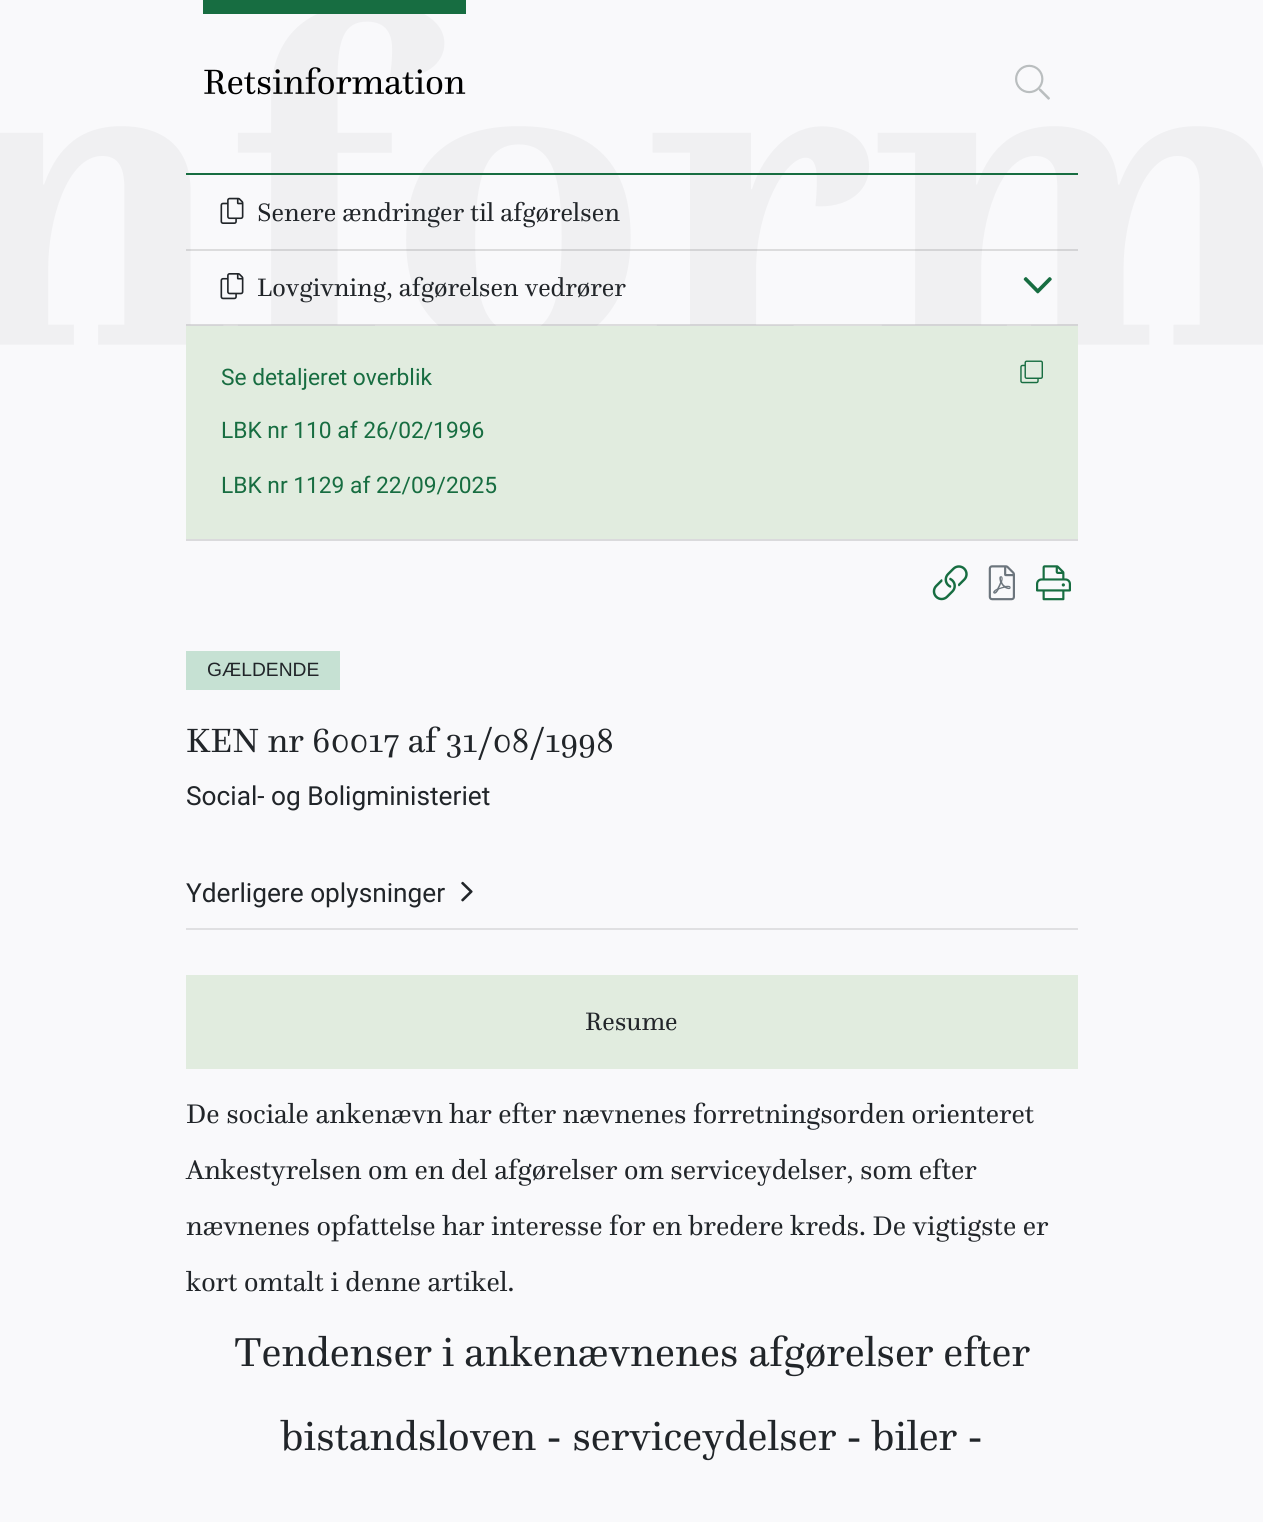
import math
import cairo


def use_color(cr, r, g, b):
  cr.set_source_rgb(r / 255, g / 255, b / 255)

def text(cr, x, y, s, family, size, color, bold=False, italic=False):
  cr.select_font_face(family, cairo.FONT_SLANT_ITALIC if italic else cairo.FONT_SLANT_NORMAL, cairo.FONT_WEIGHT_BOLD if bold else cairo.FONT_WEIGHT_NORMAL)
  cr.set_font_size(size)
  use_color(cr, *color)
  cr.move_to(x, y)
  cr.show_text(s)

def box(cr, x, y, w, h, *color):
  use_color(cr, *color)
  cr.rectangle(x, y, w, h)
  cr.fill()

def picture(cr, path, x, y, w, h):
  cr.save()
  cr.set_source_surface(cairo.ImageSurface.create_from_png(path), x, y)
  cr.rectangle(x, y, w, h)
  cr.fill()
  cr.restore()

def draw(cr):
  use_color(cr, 249, 249, 251)
  cr.paint()
  picture(cr, "img_01.png", 0, 14, 1263, 331)
  box(cr, 186, 173, 892, 2, 23, 109, 65)
  box(cr, 203, 0, 263, 14, 23, 109, 65)
  picture(cr, "img_02.png", 204, 67, 262, 28)
  picture(cr, "img_03.png", 1015, 64, 35, 36)
  cr.set_source_rgba(0, 0, 0, 0.12)
  cr.rectangle(186, 249, 892, 2)
  cr.fill()
  picture(cr, "img_04.png", 220, 197, 24, 27)
  box(cr, 186, 539, 892, 2, 218, 218, 220)
  cr.set_source_rgba(0, 0, 0, 0.12)
  cr.rectangle(186, 324, 892, 2)
  cr.fill()
  picture(cr, "img_05.png", 220, 273, 24, 27)
  picture(cr, "img_06.png", 1023, 277, 29, 17)
  box(cr, 186, 326, 892, 213, 225, 236, 223)
  picture(cr, "img_07.png", 1020, 360, 23, 24)
  picture(cr, "img_08.png", 932, 565, 36, 36)
  picture(cr, "img_09.png", 988, 565, 27, 36)
  picture(cr, "img_10.png", 1036, 565, 35, 36)
  box(cr, 186, 651, 154, 39, 198, 225, 211)
  picture(cr, "img_11.png", 461, 881, 12, 21)
  box(cr, 186, 928, 892, 2, 224, 224, 226)
  box(cr, 186, 975, 892, 94, 225, 236, 223)
  text(cr, 257, 221, "Senere ændringer til afgørelsen", "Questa", 26.25, (33, 37, 41))
  text(cr, 257, 296, "Lovgivning, afgørelsen vedrører", "Questa", 26.25, (33, 37, 41))
  text(cr, 221, 385, "Se detaljeret overblik", "Roboto", 22.75, (23, 109, 65))
  text(cr, 221, 438, "LBK nr 110 af 26/02/1996", "Roboto", 22.75, (23, 109, 65))
  text(cr, 221, 493, "LBK nr 1129 af 22/09/2025", "Roboto", 22.75, (23, 109, 65))
  text(cr, 207, 676, "GÆLDENDE", "Liberation Sans", 19.25, (33, 37, 41))
  text(cr, 186, 752, "KEN nr 60017 af 31/08/1998", "Questa", 35, (33, 37, 41))
  text(cr, 186, 805, "Social- og Boligministeriet", "Roboto", 26.25, (33, 37, 41))
  text(cr, 186, 902, "Yderligere oplysninger", "Roboto", 26.25, (33, 37, 41))
  text(cr, 585, 1030, "Resume", "Questa", 26.25, (33, 37, 41))
  text(cr, 186, 1123, "De sociale ankenævn har efter nævnenes forretningsorden orienteret", "Questa", 28, (33, 37, 41))
  text(cr, 186, 1179, "Ankestyrelsen om en del afgørelser om serviceydelser, som efter", "Questa", 28, (33, 37, 41))
  text(cr, 186, 1235, "nævnenes opfattelse har interesse for en bredere kreds. De vigtigste er", "Questa", 28, (33, 37, 41))
  text(cr, 186, 1291, "kort omtalt i denne artikel.", "Questa", 28, (33, 37, 41))
  text(cr, 234, 1366, "Tendenser i ankenævnenes afgørelser efter", "Questa", 42, (33, 37, 41))
  text(cr, 281, 1450, "bistandsloven - serviceydelser - biler -", "Questa", 42, (33, 37, 41))


surface = cairo.ImageSurface(cairo.FORMAT_RGB24, 1263, 1522)
cr = cairo.Context(surface)
options = cairo.FontOptions()
options.set_hint_metrics(cairo.HINT_METRICS_OFF)
options.set_hint_style(cairo.HINT_STYLE_NONE)
cr.set_font_options(options)
cr.set_miter_limit(4)
draw(cr)
surface.write_to_png("out.png")
